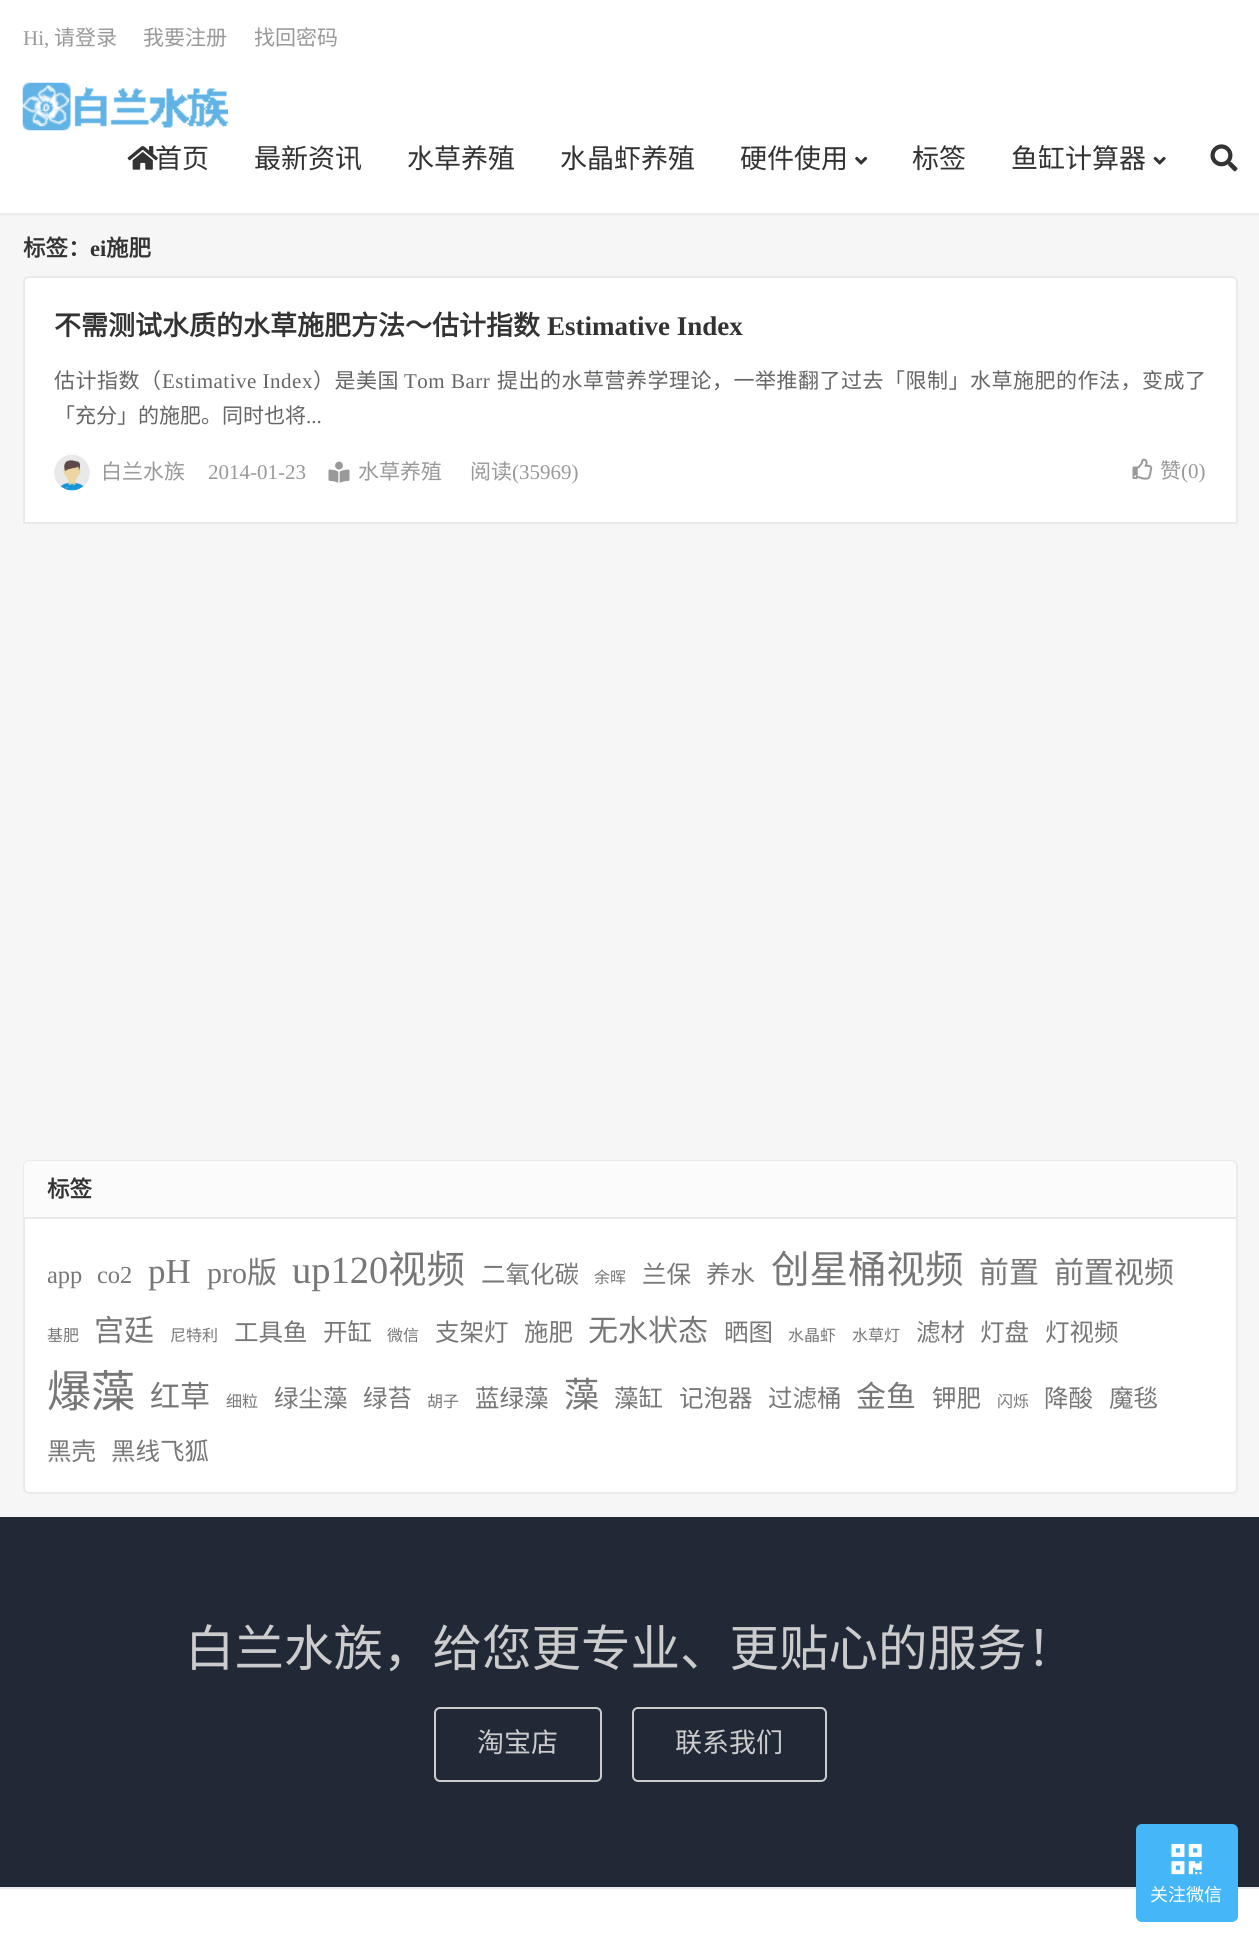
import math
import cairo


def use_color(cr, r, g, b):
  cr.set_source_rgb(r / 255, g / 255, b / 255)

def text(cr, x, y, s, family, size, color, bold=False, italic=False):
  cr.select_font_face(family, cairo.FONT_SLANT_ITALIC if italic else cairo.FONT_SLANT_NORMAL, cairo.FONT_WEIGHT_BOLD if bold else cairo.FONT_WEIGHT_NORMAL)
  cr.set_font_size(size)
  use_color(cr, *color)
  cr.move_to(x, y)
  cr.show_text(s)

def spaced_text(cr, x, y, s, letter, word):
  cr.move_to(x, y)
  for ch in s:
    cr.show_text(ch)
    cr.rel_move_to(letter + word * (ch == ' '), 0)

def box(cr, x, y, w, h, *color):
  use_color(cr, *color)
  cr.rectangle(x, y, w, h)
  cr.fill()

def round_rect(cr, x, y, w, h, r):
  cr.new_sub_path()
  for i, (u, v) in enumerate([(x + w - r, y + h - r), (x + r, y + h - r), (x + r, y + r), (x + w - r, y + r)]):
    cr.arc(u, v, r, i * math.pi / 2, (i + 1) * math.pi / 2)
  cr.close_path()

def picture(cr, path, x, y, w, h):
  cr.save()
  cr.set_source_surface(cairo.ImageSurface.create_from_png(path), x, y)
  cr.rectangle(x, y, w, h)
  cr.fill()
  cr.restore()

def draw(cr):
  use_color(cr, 246, 246, 246)
  cr.paint()
  box(cr, 0, 0, 1259, 213, 255, 255, 255)
  box(cr, 0, 213, 1259, 2, 235, 235, 235)
  picture(cr, "img_01.png", 22, 82, 206, 49)
  picture(cr, "img_02.png", 127, 146, 31, 24)
  picture(cr, "img_03.png", 855, 156, 13, 9)
  picture(cr, "img_04.png", 1153, 156, 13, 9)
  picture(cr, "img_05.png", 1210, 144, 28, 28)
  use_color(cr, 255, 255, 255)
  cr.new_path()
  cr.move_to(29, 277)
  cr.line_to(1232, 277)
  cr.curve_to(1235, 277, 1237, 279, 1237, 282)
  cr.line_to(1237, 523)
  cr.line_to(24, 523)
  cr.line_to(24, 282)
  cr.curve_to(24, 279, 26, 277, 29, 277)
  cr.close_path()
  cr.fill_preserve()
  use_color(cr, 234, 234, 234)
  cr.stroke()
  picture(cr, "img_06.png", 54, 454, 36, 37)
  picture(cr, "img_07.png", 328, 461, 22, 22)
  picture(cr, "img_08.png", 1132, 458, 21, 22)
  use_color(cr, 255, 255, 255)
  round_rect(cr, 24, 1161, 1213, 332, 5)
  cr.fill_preserve()
  use_color(cr, 234, 234, 234)
  cr.stroke()
  use_color(cr, 251, 251, 251)
  cr.new_path()
  cr.move_to(29, 1161)
  cr.line_to(1231, 1161)
  cr.curve_to(1234, 1161, 1236, 1163, 1236, 1166)
  cr.line_to(1236, 1218)
  cr.line_to(24, 1218)
  cr.line_to(24, 1166)
  cr.curve_to(24, 1163, 26, 1161, 29, 1161)
  cr.close_path()
  cr.fill()
  box(cr, 24, 1217, 1212, 2, 234, 234, 234)
  box(cr, 0, 1517, 1259, 370, 32, 41, 53)
  round_rect(cr, 435, 1708, 166, 73, 5)
  use_color(cr, 204, 204, 204)
  cr.stroke()
  round_rect(cr, 633, 1708, 193, 73, 5)
  cr.stroke()
  box(cr, 0, 1889, 1259, 54, 255, 255, 255)
  box(cr, 0, 1887, 1259, 2, 234, 234, 234)
  use_color(cr, 69, 182, 247)
  round_rect(cr, 1137, 1825, 100, 96, 5)
  cr.fill_preserve()
  cr.stroke()
  picture(cr, "img_09.png", 1171, 1843, 31, 32)
  text(cr, 23, 45, "Hi,", "Liberation Serif", 21, (153, 153, 153))
  text(cr, 54, 45, "请登录", "Noto Sans CJK SC", 21, (153, 153, 153))
  text(cr, 143, 45, "我要注册", "Noto Sans CJK SC", 21, (153, 153, 153))
  text(cr, 254, 45, "找回密码", "Noto Sans CJK SC", 21, (153, 153, 153))
  text(cr, 155, 168, "首页", "Noto Sans CJK SC", 27, (51, 51, 51))
  text(cr, 254, 168, "最新资讯", "Noto Sans CJK SC", 27, (51, 51, 51))
  text(cr, 407, 168, "水草养殖", "Noto Sans CJK SC", 27, (51, 51, 51))
  text(cr, 560, 168, "水晶虾养殖", "Noto Sans CJK SC", 27, (51, 51, 51))
  text(cr, 740, 168, "硬件使用", "Noto Sans CJK SC", 27, (51, 51, 51))
  text(cr, 912, 168, "标签", "Noto Sans CJK SC", 27, (51, 51, 51))
  text(cr, 1011, 168, "鱼缸计算器", "Noto Sans CJK SC", 27, (51, 51, 51))
  text(cr, 23, 256, "标签：", "Noto Sans CJK SC", 22.5, (51, 51, 51), bold=True)
  text(cr, 90, 256, "ei", "Liberation Serif", 22.5, (51, 51, 51), bold=True)
  text(cr, 106, 256, "施肥", "Noto Sans CJK SC", 22.5, (51, 51, 51), bold=True)
  text(cr, 54, 335, "不需测试水质的水草施肥方法～估计指数", "Noto Sans CJK SC", 27, (51, 51, 51), bold=True)
  text(cr, 547, 335, "Estimative Index", "Liberation Serif", 27, (51, 51, 51), bold=True)
  cr.select_font_face("Noto Sans CJK SC")
  cr.set_font_size(21)
  use_color(cr, 102, 102, 102)
  spaced_text(cr, 54, 388, "估计指数（", 0.5, 0)
  cr.select_font_face("Liberation Serif")
  spaced_text(cr, 162, 388, "Estimative Index", 0.5, 0)
  cr.select_font_face("Noto Sans CJK SC")
  spaced_text(cr, 313, 388, "）是美国", 0.5, 0)
  cr.select_font_face("Liberation Serif")
  spaced_text(cr, 404, 388, "Tom Barr", 0.5, 0)
  cr.select_font_face("Noto Sans CJK SC")
  spaced_text(cr, 497, 388, "提出的水草营养学理论，一举推翻了过去「限制」水草施肥的作法，变成了", 0.5, 0)
  text(cr, 54, 423, "「充分」的施肥。同时也将", "Noto Sans CJK SC", 21, (102, 102, 102))
  text(cr, 306, 423, "...", "Liberation Serif", 21, (102, 102, 102))
  text(cr, 101, 479, "白兰水族", "Noto Sans CJK SC", 21, (153, 153, 153))
  text(cr, 208, 479, "2014-01-23", "Liberation Serif", 21, (153, 153, 153))
  text(cr, 358, 479, "水草养殖", "Noto Sans CJK SC", 21, (153, 153, 153))
  text(cr, 470, 479, "阅读", "Noto Sans CJK SC", 21, (153, 153, 153))
  text(cr, 512, 479, "(35969)", "Liberation Serif", 21, (153, 153, 153))
  text(cr, 1160, 478, "赞", "Noto Sans CJK SC", 21, (153, 153, 153))
  text(cr, 1181, 478, "(0)", "Liberation Serif", 21, (153, 153, 153))
  text(cr, 47, 1197, "标签", "Noto Sans CJK SC", 22.5, (51, 51, 51), bold=True)
  text(cr, 47, 1283, "app", "Liberation Serif", 24.5, (119, 119, 119))
  text(cr, 97, 1283, "co2", "Liberation Serif", 24.5, (119, 119, 119))
  text(cr, 148, 1283, "pH", "Liberation Serif", 35, (119, 119, 119))
  text(cr, 207, 1283, "pro", "Liberation Serif", 30, (119, 119, 119))
  text(cr, 247, 1283, "版", "Noto Sans CJK SC", 30, (119, 119, 119))
  text(cr, 292, 1283, "up120", "Liberation Serif", 38.5, (119, 119, 119))
  text(cr, 388, 1283, "视频", "Noto Sans CJK SC", 38.5, (119, 119, 119))
  text(cr, 481, 1283, "二氧化碳", "Noto Sans CJK SC", 24.5, (119, 119, 119))
  text(cr, 594, 1283, "余晖", "Noto Sans CJK SC", 16, (119, 119, 119))
  text(cr, 642, 1283, "兰保", "Noto Sans CJK SC", 24.5, (119, 119, 119))
  text(cr, 706, 1283, "养水", "Noto Sans CJK SC", 24.5, (119, 119, 119))
  text(cr, 771, 1283, "创星桶视频", "Noto Sans CJK SC", 38.5, (119, 119, 119))
  text(cr, 979, 1283, "前置", "Noto Sans CJK SC", 30, (119, 119, 119))
  text(cr, 1054, 1283, "前置视频", "Noto Sans CJK SC", 30, (119, 119, 119))
  text(cr, 47, 1341, "基肥", "Noto Sans CJK SC", 16, (119, 119, 119))
  text(cr, 94, 1341, "宫廷", "Noto Sans CJK SC", 30, (119, 119, 119))
  text(cr, 170, 1341, "尼特利", "Noto Sans CJK SC", 16, (119, 119, 119))
  text(cr, 234, 1341, "工具鱼", "Noto Sans CJK SC", 24.5, (119, 119, 119))
  text(cr, 323, 1341, "开缸", "Noto Sans CJK SC", 24.5, (119, 119, 119))
  text(cr, 387, 1341, "微信", "Noto Sans CJK SC", 16, (119, 119, 119))
  text(cr, 435, 1341, "支架灯", "Noto Sans CJK SC", 24.5, (119, 119, 119))
  text(cr, 524, 1341, "施肥", "Noto Sans CJK SC", 24.5, (119, 119, 119))
  text(cr, 588, 1341, "无水状态", "Noto Sans CJK SC", 30, (119, 119, 119))
  text(cr, 724, 1341, "晒图", "Noto Sans CJK SC", 24.5, (119, 119, 119))
  text(cr, 788, 1341, "水晶虾", "Noto Sans CJK SC", 16, (119, 119, 119))
  text(cr, 852, 1341, "水草灯", "Noto Sans CJK SC", 16, (119, 119, 119))
  text(cr, 916, 1341, "滤材", "Noto Sans CJK SC", 24.5, (119, 119, 119))
  text(cr, 980, 1341, "灯盘", "Noto Sans CJK SC", 24.5, (119, 119, 119))
  text(cr, 1045, 1341, "灯视频", "Noto Sans CJK SC", 24.5, (119, 119, 119))
  text(cr, 47, 1407, "爆藻", "Noto Sans CJK SC", 44, (119, 119, 119))
  text(cr, 150, 1407, "红草", "Noto Sans CJK SC", 30, (119, 119, 119))
  text(cr, 226, 1407, "细粒", "Noto Sans CJK SC", 16, (119, 119, 119))
  text(cr, 274, 1407, "绿尘藻", "Noto Sans CJK SC", 24.5, (119, 119, 119))
  text(cr, 363, 1407, "绿苔", "Noto Sans CJK SC", 24.5, (119, 119, 119))
  text(cr, 427, 1407, "胡子", "Noto Sans CJK SC", 16, (119, 119, 119))
  text(cr, 475, 1407, "蓝绿藻", "Noto Sans CJK SC", 24.5, (119, 119, 119))
  text(cr, 564, 1407, "藻", "Noto Sans CJK SC", 35, (119, 119, 119))
  text(cr, 614, 1407, "藻缸", "Noto Sans CJK SC", 24.5, (119, 119, 119))
  text(cr, 679, 1407, "记泡器", "Noto Sans CJK SC", 24.5, (119, 119, 119))
  text(cr, 768, 1407, "过滤桶", "Noto Sans CJK SC", 24.5, (119, 119, 119))
  text(cr, 856, 1407, "金鱼", "Noto Sans CJK SC", 30, (119, 119, 119))
  text(cr, 932, 1407, "钾肥", "Noto Sans CJK SC", 24.5, (119, 119, 119))
  text(cr, 997, 1407, "闪烁", "Noto Sans CJK SC", 16, (119, 119, 119))
  text(cr, 1044, 1407, "降酸", "Noto Sans CJK SC", 24.5, (119, 119, 119))
  text(cr, 1109, 1407, "魔毯", "Noto Sans CJK SC", 24.5, (119, 119, 119))
  text(cr, 47, 1460, "黑壳", "Noto Sans CJK SC", 24.5, (119, 119, 119))
  text(cr, 111, 1460, "黑线飞狐", "Noto Sans CJK SC", 24.5, (119, 119, 119))
  text(cr, 185, 1666, "白兰水族，给您更专业、更贴心的服务！", "Noto Sans CJK SC", 49.5, (204, 204, 204))
  text(cr, 477, 1752, "淘宝店", "Noto Sans CJK SC", 27, (204, 204, 204))
  text(cr, 675, 1752, "联系我们", "Noto Sans CJK SC", 27, (204, 204, 204))
  text(cr, 1150, 1901, "关注微信", "Noto Sans CJK SC", 18, (255, 255, 255))


surface = cairo.ImageSurface(cairo.FORMAT_RGB24, 1259, 1943)
cr = cairo.Context(surface)
options = cairo.FontOptions()
options.set_hint_metrics(cairo.HINT_METRICS_OFF)
options.set_hint_style(cairo.HINT_STYLE_NONE)
cr.set_font_options(options)
cr.set_miter_limit(4)
draw(cr)
surface.write_to_png("out.png")
